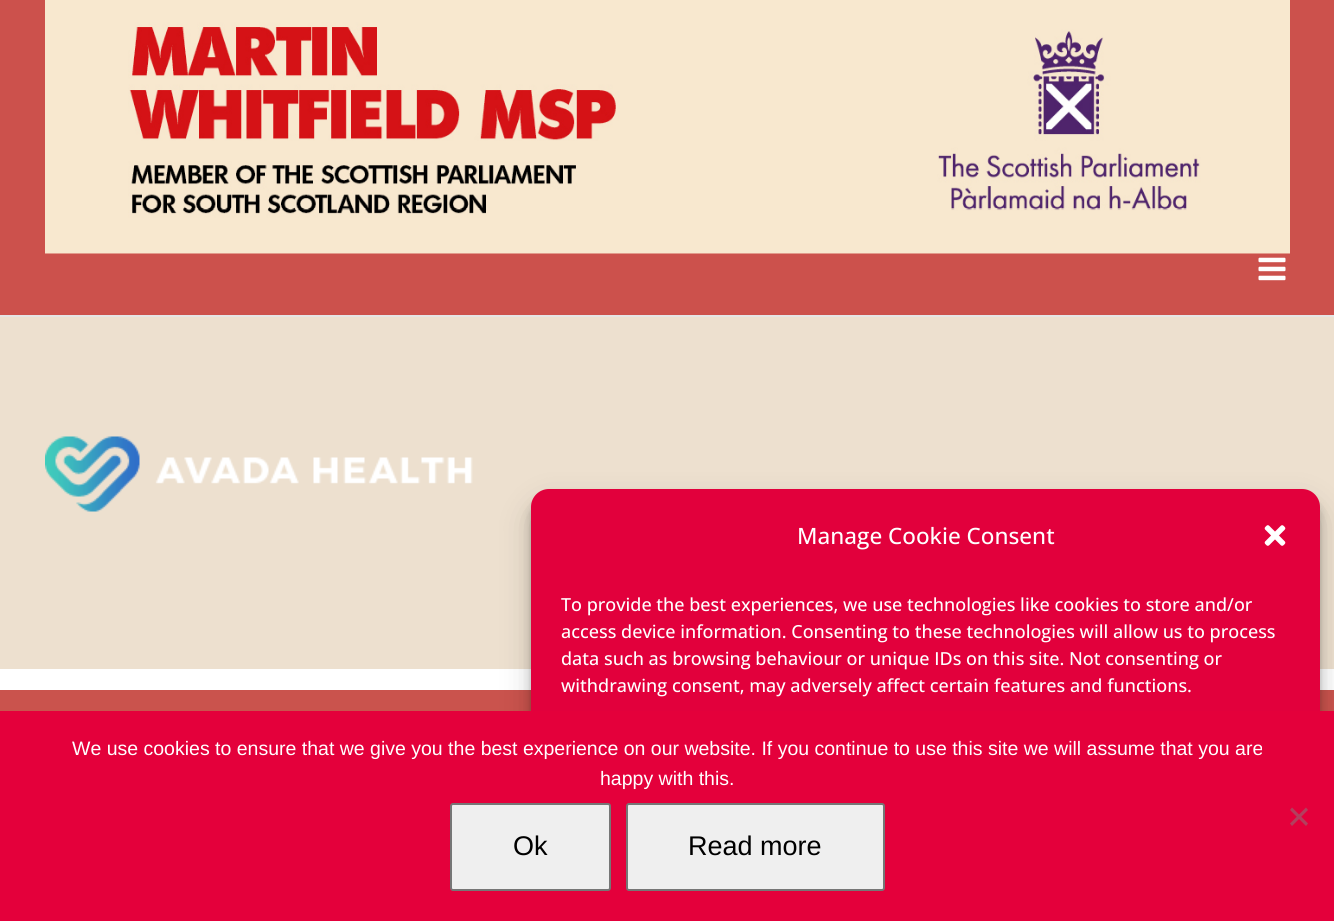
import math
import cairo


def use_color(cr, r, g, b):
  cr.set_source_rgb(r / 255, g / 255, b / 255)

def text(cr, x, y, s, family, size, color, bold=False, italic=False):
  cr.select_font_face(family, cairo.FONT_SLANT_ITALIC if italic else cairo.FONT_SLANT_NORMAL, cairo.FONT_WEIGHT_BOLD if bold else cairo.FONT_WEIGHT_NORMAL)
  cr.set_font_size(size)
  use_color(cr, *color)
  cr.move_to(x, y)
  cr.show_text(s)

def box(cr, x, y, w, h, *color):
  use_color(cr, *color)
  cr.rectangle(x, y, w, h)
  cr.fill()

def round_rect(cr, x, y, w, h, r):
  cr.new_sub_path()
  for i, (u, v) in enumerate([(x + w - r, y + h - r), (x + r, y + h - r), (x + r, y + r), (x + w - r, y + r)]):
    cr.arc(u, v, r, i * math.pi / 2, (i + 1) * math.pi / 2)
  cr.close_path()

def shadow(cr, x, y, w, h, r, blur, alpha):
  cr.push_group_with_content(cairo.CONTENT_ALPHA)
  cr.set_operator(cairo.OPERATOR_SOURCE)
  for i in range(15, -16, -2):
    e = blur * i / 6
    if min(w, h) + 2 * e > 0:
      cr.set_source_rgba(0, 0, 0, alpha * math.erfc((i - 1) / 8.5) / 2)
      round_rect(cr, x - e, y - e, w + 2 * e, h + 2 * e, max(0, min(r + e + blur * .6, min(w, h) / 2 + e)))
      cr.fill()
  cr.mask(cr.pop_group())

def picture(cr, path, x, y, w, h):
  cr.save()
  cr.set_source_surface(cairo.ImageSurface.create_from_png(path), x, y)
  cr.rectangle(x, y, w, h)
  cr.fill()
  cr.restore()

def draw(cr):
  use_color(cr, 237, 224, 207)
  cr.paint()
  box(cr, 0, 0, 1334, 315, 204, 81, 76)
  box(cr, 0, 315, 1334, 2, 229, 229, 229)
  picture(cr, "img_01.png", 45, 0, 1245, 254)
  picture(cr, "img_02.png", 1258, 257, 28, 24)
  picture(cr, "img_03.png", 45, 436, 428, 76)
  box(cr, 0, 690, 1334, 21, 202, 83, 77)
  box(cr, 0, 669, 1334, 21, 255, 255, 255)
  use_color(cr, 0, 0, 0)
  shadow(cr, 531, 498, 789, 417, 18, 4.5, 0.23)
  shadow(cr, 531, 504, 789, 417, 18, 15, 0.19)
  use_color(cr, 226, 0, 60)
  round_rect(cr, 531, 489, 789, 417, 18)
  cr.fill()
  picture(cr, "img_04.png", 1264, 525, 22, 21)
  box(cr, 0, 711, 1334, 210, 228, 0, 59)
  use_color(cr, 178, 64, 94)
  cr.new_path()
  cr.move_to(1306, 807.5)
  cr.line_to(1308, 810)
  cr.line_to(1292, 826)
  cr.line_to(1290, 823.5)
  cr.close_path()
  cr.fill()
  cr.new_path()
  cr.move_to(1290, 810)
  cr.line_to(1292, 807.5)
  cr.line_to(1308, 823.5)
  cr.line_to(1306, 826)
  cr.close_path()
  cr.fill()
  use_color(cr, 239, 239, 239)
  round_rect(cr, 451, 804, 159, 86, 2)
  cr.fill_preserve()
  use_color(cr, 118, 118, 118)
  cr.stroke()
  use_color(cr, 239, 239, 239)
  round_rect(cr, 627, 804, 257, 86, 2)
  cr.fill_preserve()
  use_color(cr, 118, 118, 118)
  cr.stroke()
  text(cr, 797, 544, "Manage Cookie Consent", "Open Sans Medium", 22.5, (255, 255, 255))
  text(cr, 561, 611, "To provide the best experiences, we use technologies like cookies to store and/or", "Open Sans Medium", 18, (255, 255, 255))
  text(cr, 561, 638, "access device information. Consenting to these technologies will allow us to process", "Open Sans Medium", 18, (255, 255, 255))
  text(cr, 561, 665, "data such as browsing behaviour or unique IDs on this site. Not consenting or", "Open Sans Medium", 18, (255, 255, 255))
  text(cr, 561, 692, "withdrawing consent, may adversely affect certain features and functions.", "Open Sans Medium", 18, (255, 255, 255))
  text(cr, 72, 755, "We use cookies to ensure that we give you the best experience on our website. If you continue to use this site we will assume that you are", "Liberation Sans", 19.5, (255, 255, 255))
  text(cr, 600, 785, "happy with this.", "Liberation Sans", 19.5, (255, 255, 255))
  text(cr, 513, 855, "Ok", "Liberation Sans", 27, (0, 0, 0))
  text(cr, 688, 855, "Read more", "Liberation Sans", 27, (0, 0, 0))


surface = cairo.ImageSurface(cairo.FORMAT_RGB24, 1334, 921)
cr = cairo.Context(surface)
options = cairo.FontOptions()
options.set_hint_metrics(cairo.HINT_METRICS_OFF)
options.set_hint_style(cairo.HINT_STYLE_NONE)
cr.set_font_options(options)
cr.set_miter_limit(4)
draw(cr)
surface.write_to_png("out.png")
